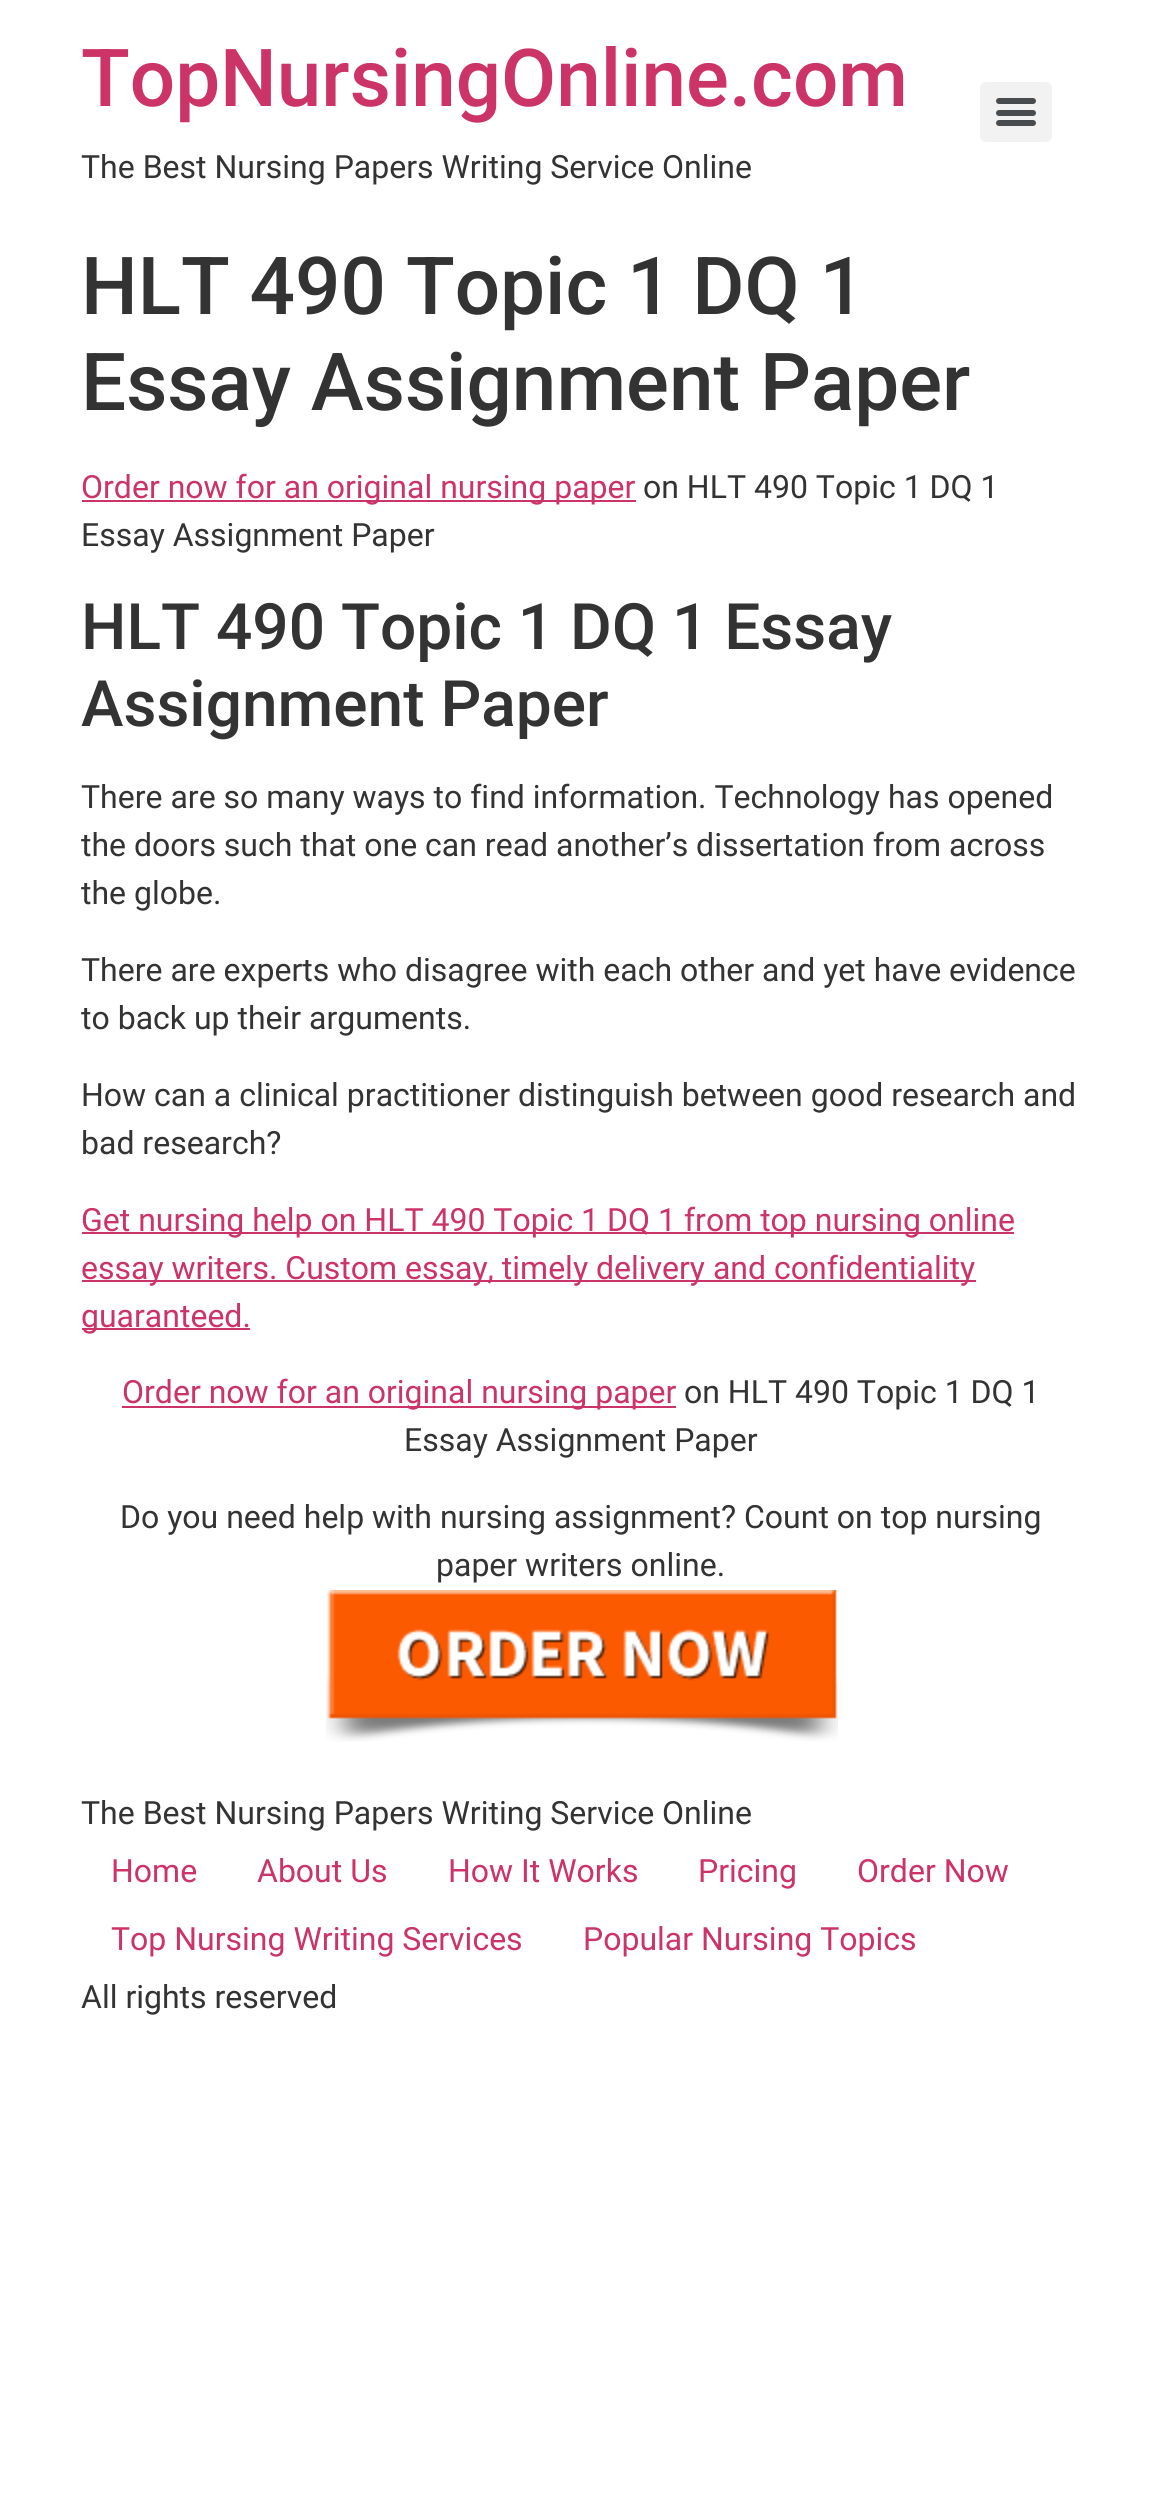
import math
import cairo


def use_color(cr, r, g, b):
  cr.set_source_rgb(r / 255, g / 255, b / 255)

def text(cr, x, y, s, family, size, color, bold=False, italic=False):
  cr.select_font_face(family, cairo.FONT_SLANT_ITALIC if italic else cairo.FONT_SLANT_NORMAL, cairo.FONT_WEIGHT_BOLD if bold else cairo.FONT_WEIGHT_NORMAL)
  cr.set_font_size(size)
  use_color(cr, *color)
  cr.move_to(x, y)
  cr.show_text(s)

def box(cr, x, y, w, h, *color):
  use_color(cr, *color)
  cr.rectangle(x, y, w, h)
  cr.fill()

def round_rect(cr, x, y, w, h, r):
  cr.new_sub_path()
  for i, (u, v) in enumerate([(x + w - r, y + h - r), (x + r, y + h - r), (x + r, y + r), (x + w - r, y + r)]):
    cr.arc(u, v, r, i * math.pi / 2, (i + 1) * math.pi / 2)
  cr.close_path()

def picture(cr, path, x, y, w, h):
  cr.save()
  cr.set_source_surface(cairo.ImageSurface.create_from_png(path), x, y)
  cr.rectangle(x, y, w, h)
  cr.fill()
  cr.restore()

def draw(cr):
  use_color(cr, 255, 255, 255)
  cr.paint()
  use_color(cr, 242, 242, 242)
  round_rect(cr, 980, 82, 72, 60, 6)
  cr.fill()
  use_color(cr, 73, 76, 79)
  round_rect(cr, 996, 110, 40, 6, 3)
  cr.fill()
  round_rect(cr, 996, 98, 40, 6, 3)
  cr.fill()
  round_rect(cr, 996, 120, 40, 6, 3)
  cr.fill()
  box(cr, 82, 500, 554, 2, 204, 51, 102)
  box(cr, 82, 1232, 932, 2, 204, 51, 102)
  box(cr, 82, 1280, 894, 2, 204, 51, 102)
  box(cr, 82, 1328, 168, 2, 204, 51, 102)
  box(cr, 122, 1406, 554, 2, 204, 51, 102)
  picture(cr, "img_01.png", 326, 1590, 512, 152)
  text(cr, 81, 106, "TopNursingOnline.com", "Roboto Medium", 80, (204, 51, 102))
  text(cr, 81, 178, "The Best Nursing Papers Writing Service Online", "Roboto", 32, (51, 51, 51))
  text(cr, 81, 314, "HLT 490 Topic 1 DQ 1", "Roboto Medium", 80, (51, 51, 51))
  text(cr, 81, 410, "Essay Assignment Paper", "Roboto Medium", 80, (51, 51, 51))
  text(cr, 81, 498, "Order now for an original nursing paper", "Roboto", 32, (204, 51, 102))
  text(cr, 643, 498, "on HLT 490 Topic 1 DQ 1", "Roboto", 32, (51, 51, 51))
  text(cr, 81, 546, "Essay Assignment Paper", "Roboto", 32, (51, 51, 51))
  text(cr, 81, 649, "HLT 490 Topic 1 DQ 1 Essay", "Roboto Medium", 64, (51, 51, 51))
  text(cr, 81, 726, "Assignment Paper", "Roboto Medium", 64, (51, 51, 51))
  text(cr, 81, 808, "There are so many ways to find information. Technology has opened", "Roboto", 32, (51, 51, 51))
  text(cr, 81, 856, "the doors such that one can read another’s dissertation from across", "Roboto", 32, (51, 51, 51))
  text(cr, 81, 904, "the globe.", "Roboto", 32, (51, 51, 51))
  text(cr, 81, 981, "There are experts who disagree with each other and yet have evidence", "Roboto", 32, (51, 51, 51))
  text(cr, 81, 1029, "to back up their arguments.", "Roboto", 32, (51, 51, 51))
  text(cr, 81, 1106, "How can a clinical practitioner distinguish between good research and", "Roboto", 32, (51, 51, 51))
  text(cr, 81, 1154, "bad research?", "Roboto", 32, (51, 51, 51))
  text(cr, 81, 1231, "Get nursing help on HLT 490 Topic 1 DQ 1 from top nursing online", "Roboto", 32, (204, 51, 102))
  text(cr, 81, 1279, "essay writers. Custom essay, timely delivery and confidentiality", "Roboto", 32, (204, 51, 102))
  text(cr, 81, 1327, "guaranteed.", "Roboto", 32, (204, 51, 102))
  text(cr, 122, 1403, "Order now for an original nursing paper", "Roboto", 32, (204, 51, 102))
  text(cr, 684, 1403, "on HLT 490 Topic 1 DQ 1", "Roboto", 32, (51, 51, 51))
  text(cr, 404, 1451, "Essay Assignment Paper", "Roboto", 32, (51, 51, 51))
  text(cr, 120, 1528, "Do you need help with nursing assignment? Count on top nursing", "Roboto", 32, (51, 51, 51))
  text(cr, 436, 1576, "paper writers online.", "Roboto", 32, (51, 51, 51))
  text(cr, 81, 1824, "The Best Nursing Papers Writing Service Online", "Roboto", 32, (51, 51, 51))
  text(cr, 111, 1882, "Home", "Roboto", 32, (204, 51, 102))
  text(cr, 257, 1882, "About Us", "Roboto", 32, (204, 51, 102))
  text(cr, 448, 1882, "How It Works", "Roboto", 32, (204, 51, 102))
  text(cr, 698, 1882, "Pricing", "Roboto", 32, (204, 51, 102))
  text(cr, 857, 1882, "Order Now", "Roboto", 32, (204, 51, 102))
  text(cr, 111, 1950, "Top Nursing Writing Services", "Roboto", 32, (204, 51, 102))
  text(cr, 583, 1950, "Popular Nursing Topics", "Roboto", 32, (204, 51, 102))
  text(cr, 81, 2008, "All rights reserved", "Roboto", 32, (51, 51, 51))


surface = cairo.ImageSurface(cairo.FORMAT_RGB24, 1161, 2497)
cr = cairo.Context(surface)
options = cairo.FontOptions()
options.set_hint_metrics(cairo.HINT_METRICS_OFF)
options.set_hint_style(cairo.HINT_STYLE_NONE)
cr.set_font_options(options)
cr.set_miter_limit(4)
draw(cr)
surface.write_to_png("out.png")
